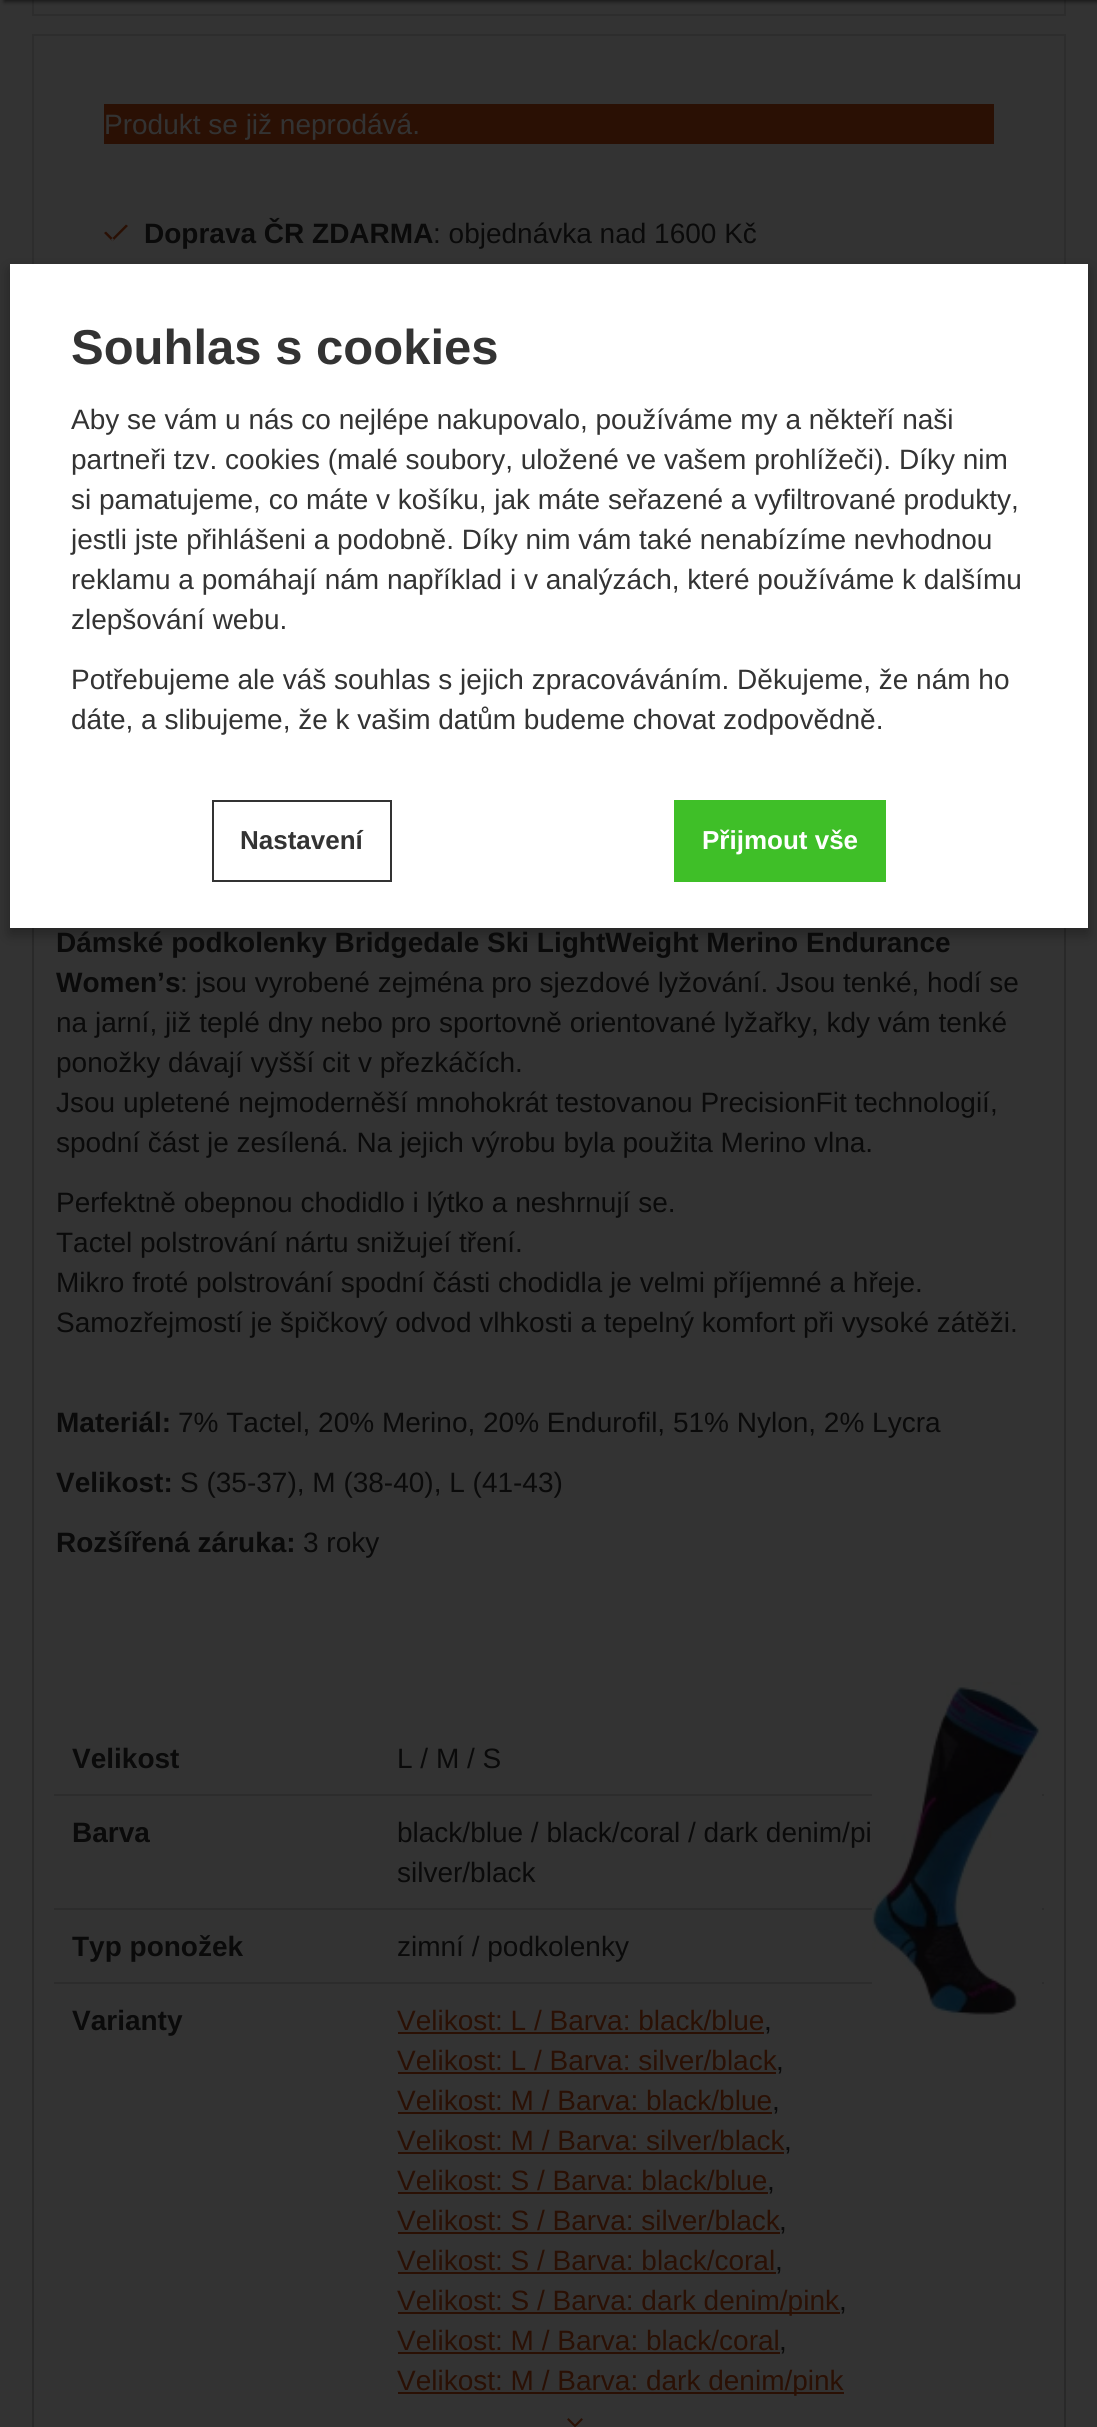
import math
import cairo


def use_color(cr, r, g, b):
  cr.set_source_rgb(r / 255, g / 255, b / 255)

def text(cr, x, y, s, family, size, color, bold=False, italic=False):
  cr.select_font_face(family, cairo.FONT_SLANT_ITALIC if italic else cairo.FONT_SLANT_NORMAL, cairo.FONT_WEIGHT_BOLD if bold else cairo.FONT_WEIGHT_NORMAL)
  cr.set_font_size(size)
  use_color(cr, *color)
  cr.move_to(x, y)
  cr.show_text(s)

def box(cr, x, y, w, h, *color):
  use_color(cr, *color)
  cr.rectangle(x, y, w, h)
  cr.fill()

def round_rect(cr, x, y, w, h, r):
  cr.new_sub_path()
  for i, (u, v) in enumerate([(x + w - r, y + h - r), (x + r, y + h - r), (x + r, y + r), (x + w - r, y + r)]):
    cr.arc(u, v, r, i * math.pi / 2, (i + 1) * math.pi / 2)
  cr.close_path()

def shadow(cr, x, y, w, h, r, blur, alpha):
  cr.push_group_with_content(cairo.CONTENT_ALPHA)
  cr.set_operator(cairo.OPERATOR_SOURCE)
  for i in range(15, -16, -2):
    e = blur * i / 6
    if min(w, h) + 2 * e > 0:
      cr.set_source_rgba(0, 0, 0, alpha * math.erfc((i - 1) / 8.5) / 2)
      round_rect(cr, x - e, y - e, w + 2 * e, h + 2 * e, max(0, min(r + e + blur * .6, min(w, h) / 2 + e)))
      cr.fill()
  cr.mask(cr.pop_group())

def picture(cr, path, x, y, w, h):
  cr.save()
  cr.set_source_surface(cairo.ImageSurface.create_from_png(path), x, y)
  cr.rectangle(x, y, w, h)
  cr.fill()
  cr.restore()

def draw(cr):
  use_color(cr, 51, 51, 51)
  cr.paint()
  cr.rectangle(33, -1, 1032, 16)
  use_color(cr, 45, 45, 45)
  cr.stroke()
  use_color(cr, 0, 0, 0)
  shadow(cr, 4, -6, 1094, 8, 0, 2, 0.5)
  box(cr, 32, 34, 1034, 2, 45, 45, 45)
  box(cr, 1064, 34, 2, 178, 45, 45, 45)
  box(cr, 32, 34, 2, 178, 45, 45, 45)
  box(cr, 104, 104, 890, 40, 42, 16, 4)
  box(cr, 1064, 212, 2, 52, 45, 45, 45)
  box(cr, 32, 212, 2, 52, 45, 45, 45)
  use_color(cr, 42, 16, 4)
  cr.new_path()
  cr.move_to(106, 231.5)
  cr.line_to(114, 239.5)
  cr.line_to(112.5, 241.5)
  cr.line_to(104, 233)
  cr.close_path()
  cr.move_to(126, 224.5)
  cr.line_to(111, 239.5)
  cr.line_to(112.5, 241.5)
  cr.line_to(128, 226)
  cr.close_path()
  cr.fill()
  cr.rectangle(33, 649, 1032, 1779)
  use_color(cr, 41, 41, 41)
  cr.stroke()
  box(cr, 54, 1794, 990, 2, 44, 44, 44)
  box(cr, 54, 1908, 990, 2, 44, 44, 44)
  box(cr, 54, 1982, 990, 2, 44, 44, 44)
  box(cr, 398, 2032, 366, 2, 42, 16, 4)
  box(cr, 398, 2072, 378, 2, 42, 16, 4)
  box(cr, 398, 2112, 374, 2, 42, 16, 4)
  box(cr, 398, 2152, 386, 2, 42, 16, 4)
  box(cr, 398, 2192, 370, 2, 42, 16, 4)
  box(cr, 398, 2232, 382, 2, 42, 16, 4)
  box(cr, 398, 2272, 378, 2, 42, 16, 4)
  box(cr, 398, 2312, 442, 2, 42, 16, 4)
  box(cr, 398, 2352, 382, 2, 42, 16, 4)
  box(cr, 398, 2392, 446, 2, 42, 16, 4)
  picture(cr, "img_01.png", 567, 2418, 16, 9)
  picture(cr, "img_02.png", 872, 1682, 170, 336)
  use_color(cr, 0, 0, 0)
  shadow(cr, 10, 270, 1078, 664, 0, 7, 0.3)
  box(cr, 10, 264, 1078, 664, 255, 255, 255)
  cr.rectangle(213, 801, 178, 80)
  use_color(cr, 51, 51, 51)
  cr.stroke()
  box(cr, 674, 800, 212, 82, 63, 191, 40)
  text(cr, 104, 134, "Produkt se již neprodává.", "Liberation Sans", 28, (51, 51, 51))
  text(cr, 144, 243, "Doprava ČR ZDARMA", "Liberation Sans", 28, (10, 10, 10), bold=True)
  text(cr, 433, 243, ": objednávka nad 1600 Kč", "Liberation Sans", 28, (10, 10, 10))
  text(cr, 56, 952, "Dámské podkolenky Bridgedale Ski LightWeight Merino Endurance", "Liberation Sans", 28, (10, 10, 10), bold=True)
  text(cr, 56, 992, "Women’s", "Liberation Sans", 28, (10, 10, 10), bold=True)
  text(cr, 180, 992, ": jsou vyrobené zejména pro sjezdové lyžování. Jsou tenké, hodí se", "Liberation Sans", 28, (10, 10, 10))
  text(cr, 56, 1032, "na jarní, již teplé dny nebo pro sportovně orientované lyžařky, kdy vám tenké", "Liberation Sans", 28, (10, 10, 10))
  text(cr, 56, 1072, "ponožky dávají vyšší cit v přezkáčích.", "Liberation Sans", 28, (10, 10, 10))
  text(cr, 56, 1112, "Jsou upletené nejmoderněší mnohokrát testovanou PrecisionFit technologií,", "Liberation Sans", 28, (10, 10, 10))
  text(cr, 56, 1152, "spodní část je zesílená. Na jejich výrobu byla použita Merino vlna.", "Liberation Sans", 28, (10, 10, 10))
  text(cr, 56, 1212, "Perfektně obepnou chodidlo i lýtko a neshrnují se.", "Liberation Sans", 28, (10, 10, 10))
  text(cr, 56, 1252, "Tactel polstrování nártu snižujeí tření.", "Liberation Sans", 28, (10, 10, 10))
  text(cr, 56, 1292, "Mikro froté polstrování spodní části chodidla je velmi příjemné a hřeje.", "Liberation Sans", 28, (10, 10, 10))
  text(cr, 56, 1332, "Samozřejmostí je špičkový odvod vlhkosti a tepelný komfort při vysoké zátěži.", "Liberation Sans", 28, (10, 10, 10))
  text(cr, 56, 1432, "Materiál:", "Liberation Sans", 28, (10, 10, 10), bold=True)
  text(cr, 178, 1432, "7% Tactel, 20% Merino, 20% Endurofil, 51% Nylon, 2% Lycra", "Liberation Sans", 28, (10, 10, 10))
  text(cr, 56, 1492, "Velikost:", "Liberation Sans", 28, (10, 10, 10), bold=True)
  text(cr, 180, 1492, "S (35-37), M (38-40), L (41-43)", "Liberation Sans", 28, (10, 10, 10))
  text(cr, 56, 1552, "Rozšířená záruka:", "Liberation Sans", 28, (10, 10, 10), bold=True)
  text(cr, 303, 1552, "3 roky", "Liberation Sans", 28, (10, 10, 10))
  text(cr, 72, 1768, "Velikost", "Liberation Sans", 28, (10, 10, 10), bold=True)
  text(cr, 397, 1768, "L / M / S", "Liberation Sans", 28, (10, 10, 10))
  text(cr, 72, 1842, "Barva", "Liberation Sans", 28, (10, 10, 10), bold=True)
  text(cr, 397, 1842, "black/blue / black/coral / dark denim/pi", "Liberation Sans", 28, (10, 10, 10))
  text(cr, 397, 1882, "silver/black", "Liberation Sans", 28, (10, 10, 10))
  text(cr, 72, 1956, "Typ ponožek", "Liberation Sans", 28, (10, 10, 10), bold=True)
  text(cr, 397, 1956, "zimní / podkolenky", "Liberation Sans", 28, (10, 10, 10))
  text(cr, 72, 2030, "Varianty", "Liberation Sans", 28, (10, 10, 10), bold=True)
  text(cr, 397, 2030, "Velikost: L / Barva: black/blue", "Liberation Sans", 28, (42, 16, 4))
  text(cr, 764, 2030, ",", "Liberation Sans", 28, (10, 10, 10))
  text(cr, 397, 2070, "Velikost: L / Barva: silver/black", "Liberation Sans", 28, (42, 16, 4))
  text(cr, 776, 2070, ",", "Liberation Sans", 28, (10, 10, 10))
  text(cr, 397, 2110, "Velikost: M / Barva: black/blue", "Liberation Sans", 28, (42, 16, 4))
  text(cr, 772, 2110, ",", "Liberation Sans", 28, (10, 10, 10))
  text(cr, 397, 2150, "Velikost: M / Barva: silver/black", "Liberation Sans", 28, (42, 16, 4))
  text(cr, 784, 2150, ",", "Liberation Sans", 28, (10, 10, 10))
  text(cr, 397, 2190, "Velikost: S / Barva: black/blue", "Liberation Sans", 28, (42, 16, 4))
  text(cr, 767, 2190, ",", "Liberation Sans", 28, (10, 10, 10))
  text(cr, 397, 2230, "Velikost: S / Barva: silver/black", "Liberation Sans", 28, (42, 16, 4))
  text(cr, 779, 2230, ",", "Liberation Sans", 28, (10, 10, 10))
  text(cr, 397, 2270, "Velikost: S / Barva: black/coral", "Liberation Sans", 28, (42, 16, 4))
  text(cr, 775, 2270, ",", "Liberation Sans", 28, (10, 10, 10))
  text(cr, 397, 2310, "Velikost: S / Barva: dark denim/pink", "Liberation Sans", 28, (42, 16, 4))
  text(cr, 839, 2310, ",", "Liberation Sans", 28, (10, 10, 10))
  text(cr, 397, 2350, "Velikost: M / Barva: black/coral", "Liberation Sans", 28, (42, 16, 4))
  text(cr, 779, 2350, ",", "Liberation Sans", 28, (10, 10, 10))
  text(cr, 397, 2390, "Velikost: M / Barva: dark denim/pink", "Liberation Sans", 28, (42, 16, 4))
  text(cr, 71, 364, "Souhlas s cookies", "Liberation Sans", 49, (51, 51, 51), bold=True)
  text(cr, 71, 429, "Aby se vám u nás co nejlépe nakupovalo, používáme my a někteří naši", "Liberation Sans", 28, (51, 51, 51))
  text(cr, 71, 469, "partneři tzv. cookies (malé soubory, uložené ve vašem prohlížeči). Díky nim", "Liberation Sans", 28, (51, 51, 51))
  text(cr, 71, 509, "si pamatujeme, co máte v košíku, jak máte seřazené a vyfiltrované produkty,", "Liberation Sans", 28, (51, 51, 51))
  text(cr, 71, 549, "jestli jste přihlášeni a podobně. Díky nim vám také nenabízíme nevhodnou", "Liberation Sans", 28, (51, 51, 51))
  text(cr, 71, 589, "reklamu a pomáhají nám například i v analýzách, které používáme k dalšímu", "Liberation Sans", 28, (51, 51, 51))
  text(cr, 71, 629, "zlepšování webu.", "Liberation Sans", 28, (51, 51, 51))
  text(cr, 71, 689, "Potřebujeme ale váš souhlas s jejich zpracováváním. Děkujeme, že nám ho", "Liberation Sans", 28, (51, 51, 51))
  text(cr, 71, 729, "dáte, a slibujeme, že k vašim datům budeme chovat zodpovědně.", "Liberation Sans", 28, (51, 51, 51))
  text(cr, 240, 849, "Nastavení", "Liberation Sans", 26, (51, 51, 51), bold=True)
  text(cr, 702, 849, "Přijmout vše", "Liberation Sans", 26, (255, 255, 255), bold=True)


surface = cairo.ImageSurface(cairo.FORMAT_RGB24, 1097, 2427)
cr = cairo.Context(surface)
options = cairo.FontOptions()
options.set_hint_metrics(cairo.HINT_METRICS_OFF)
options.set_hint_style(cairo.HINT_STYLE_NONE)
cr.set_font_options(options)
cr.set_miter_limit(4)
draw(cr)
surface.write_to_png("out.png")
